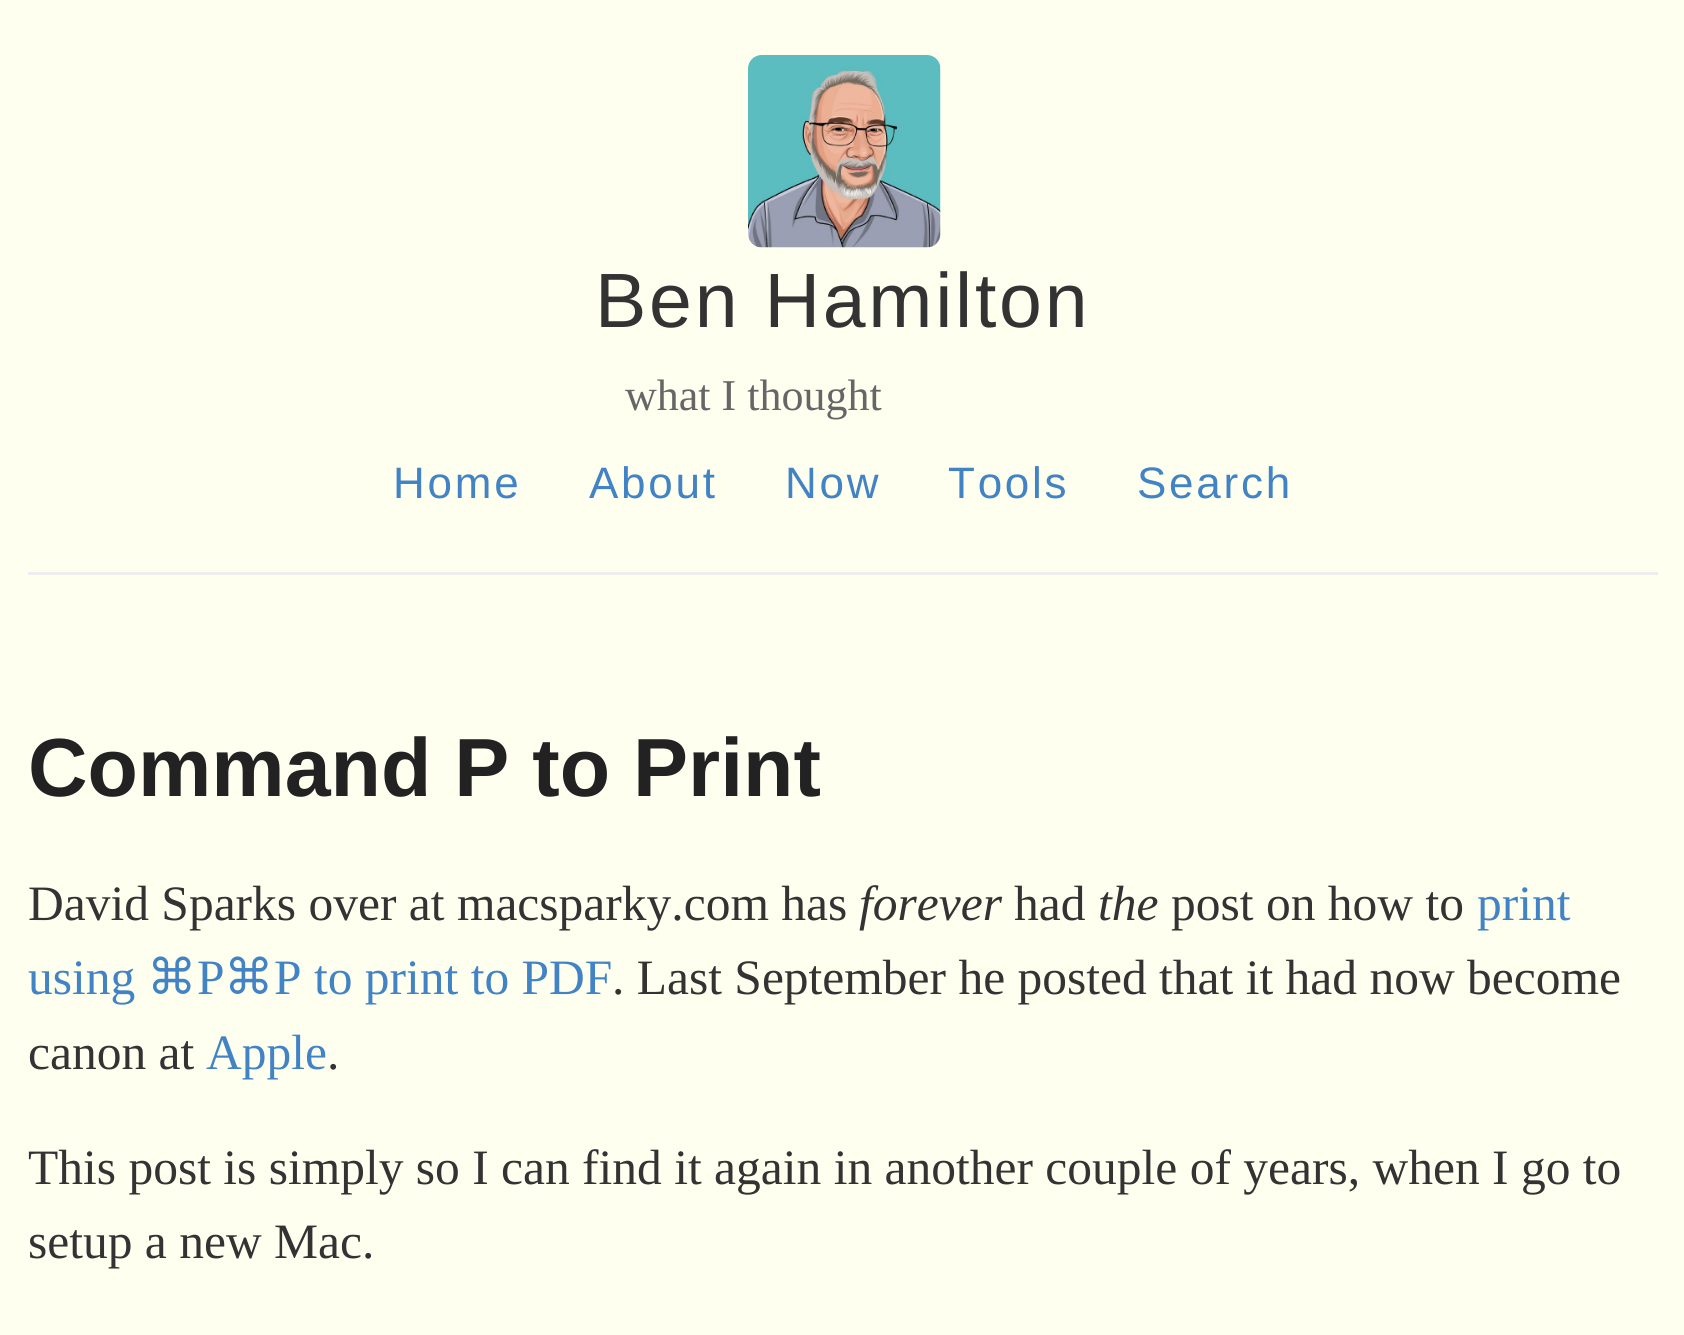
import math
import cairo


def use_color(cr, r, g, b):
  cr.set_source_rgb(r / 255, g / 255, b / 255)

def text(cr, x, y, s, family, size, color, bold=False, italic=False):
  cr.select_font_face(family, cairo.FONT_SLANT_ITALIC if italic else cairo.FONT_SLANT_NORMAL, cairo.FONT_WEIGHT_BOLD if bold else cairo.FONT_WEIGHT_NORMAL)
  cr.set_font_size(size)
  use_color(cr, *color)
  cr.move_to(x, y)
  cr.show_text(s)

def spaced_text(cr, x, y, s, letter, word):
  cr.move_to(x, y)
  for ch in s:
    cr.show_text(ch)
    cr.rel_move_to(letter + word * (ch == ' '), 0)

def box(cr, x, y, w, h, *color):
  use_color(cr, *color)
  cr.rectangle(x, y, w, h)
  cr.fill()

def picture(cr, path, x, y, w, h):
  cr.save()
  cr.set_source_surface(cairo.ImageSurface.create_from_png(path), x, y)
  cr.rectangle(x, y, w, h)
  cr.fill()
  cr.restore()

def draw(cr):
  use_color(cr, 255, 255, 240)
  cr.paint()
  box(cr, 28, 572, 1630, 3, 238, 238, 238)
  picture(cr, "img_01.png", 748, 55, 193, 193)
  cr.select_font_face("Liberation Sans")
  cr.set_font_size(77)
  use_color(cr, 51, 51, 51)
  spaced_text(cr, 595, 327, "Ben Hamilton", 2.75, 0)
  text(cr, 625, 410, "what I thought", "Liberation Serif", 44, (102, 102, 102))
  cr.select_font_face("Liberation Sans")
  use_color(cr, 65, 131, 196)
  spaced_text(cr, 393, 498, "Home", 2.75, 0)
  spaced_text(cr, 589, 498, "About", 2.75, 0)
  spaced_text(cr, 785, 498, "Now", 2.75, 0)
  spaced_text(cr, 948, 498, "Tools", 2.75, 0)
  spaced_text(cr, 1137, 498, "Search", 2.75, 0)
  text(cr, 28, 796, "Command P to Print", "Liberation Sans", 82.5, (34, 34, 34), bold=True)
  text(cr, 28, 920, "David Sparks over at macsparky.com has", "Liberation Serif", 49.5, (51, 51, 51))
  text(cr, 859, 920, "forever", "Liberation Serif", 49.5, (51, 51, 51), italic=True)
  text(cr, 1014, 920, "had", "Liberation Serif", 49.5, (51, 51, 51))
  text(cr, 1098, 920, "the", "Liberation Serif", 49.5, (51, 51, 51), italic=True)
  text(cr, 1171, 920, "post on how to", "Liberation Serif", 49.5, (51, 51, 51))
  text(cr, 1477, 920, "print", "Liberation Serif", 49.5, (65, 131, 196))
  text(cr, 28, 994, "using", "Liberation Serif", 49.5, (65, 131, 196))
  text(cr, 147, 994, "⌘", "DejaVu Sans", 49.5, (65, 131, 196))
  text(cr, 197, 994, "P", "Liberation Serif", 49.5, (65, 131, 196))
  text(cr, 224, 994, "⌘", "DejaVu Sans", 49.5, (65, 131, 196))
  text(cr, 274, 994, "P to print to PDF", "Liberation Serif", 49.5, (65, 131, 196))
  text(cr, 612, 994, ". Last September he posted that it had now become", "Liberation Serif", 49.5, (51, 51, 51))
  text(cr, 28, 1069, "canon at", "Liberation Serif", 49.5, (51, 51, 51))
  text(cr, 206, 1069, "Apple", "Liberation Serif", 49.5, (65, 131, 196))
  text(cr, 327, 1069, ".", "Liberation Serif", 49.5, (51, 51, 51))
  text(cr, 28, 1184, "This post is simply so I can find it again in another couple of years, when I go to", "Liberation Serif", 49.5, (51, 51, 51))
  text(cr, 28, 1258, "setup a new Mac.", "Liberation Serif", 49.5, (51, 51, 51))


surface = cairo.ImageSurface(cairo.FORMAT_RGB24, 1684, 1335)
cr = cairo.Context(surface)
options = cairo.FontOptions()
options.set_hint_metrics(cairo.HINT_METRICS_OFF)
options.set_hint_style(cairo.HINT_STYLE_NONE)
cr.set_font_options(options)
cr.set_miter_limit(4)
draw(cr)
surface.write_to_png("out.png")
